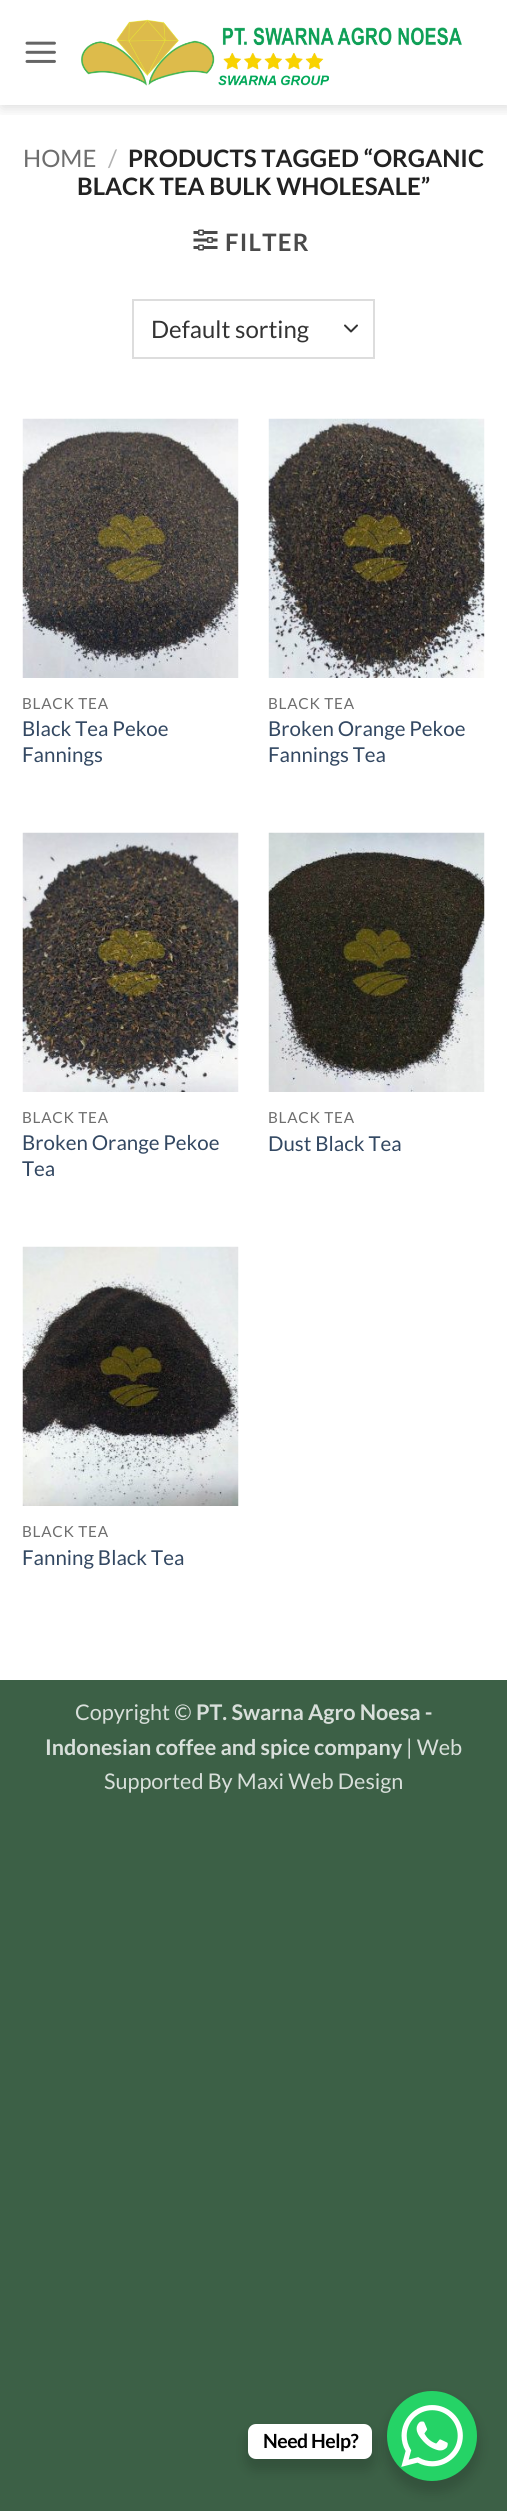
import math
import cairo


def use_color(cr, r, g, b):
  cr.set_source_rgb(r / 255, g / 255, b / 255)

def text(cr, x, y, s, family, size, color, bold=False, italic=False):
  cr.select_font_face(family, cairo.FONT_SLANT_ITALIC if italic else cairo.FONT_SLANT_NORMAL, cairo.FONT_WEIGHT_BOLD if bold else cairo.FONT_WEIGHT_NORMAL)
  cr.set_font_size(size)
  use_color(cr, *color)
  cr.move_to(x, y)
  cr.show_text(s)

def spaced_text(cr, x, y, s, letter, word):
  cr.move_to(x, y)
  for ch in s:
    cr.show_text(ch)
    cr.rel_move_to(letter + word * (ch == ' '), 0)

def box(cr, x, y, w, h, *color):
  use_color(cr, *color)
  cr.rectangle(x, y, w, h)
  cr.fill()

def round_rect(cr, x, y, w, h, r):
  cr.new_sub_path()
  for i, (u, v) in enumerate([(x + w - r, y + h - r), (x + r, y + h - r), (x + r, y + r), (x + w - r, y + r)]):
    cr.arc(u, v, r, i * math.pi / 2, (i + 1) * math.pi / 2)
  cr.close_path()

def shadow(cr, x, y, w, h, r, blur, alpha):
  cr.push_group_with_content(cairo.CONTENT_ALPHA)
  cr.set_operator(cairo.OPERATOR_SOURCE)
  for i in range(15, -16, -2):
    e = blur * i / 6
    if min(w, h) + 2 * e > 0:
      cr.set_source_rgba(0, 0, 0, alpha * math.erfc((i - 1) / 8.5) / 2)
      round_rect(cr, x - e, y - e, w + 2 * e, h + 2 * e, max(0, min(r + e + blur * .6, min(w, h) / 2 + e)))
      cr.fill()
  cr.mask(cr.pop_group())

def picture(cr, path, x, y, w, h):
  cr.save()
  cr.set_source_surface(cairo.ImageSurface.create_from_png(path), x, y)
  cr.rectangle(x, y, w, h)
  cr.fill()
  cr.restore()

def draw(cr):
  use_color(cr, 60, 96, 70)
  cr.paint()
  box(cr, 0, 0, 507, 1680, 255, 255, 255)
  cr.save()
  cr.rectangle(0, 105, 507, 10)
  cr.clip()
  use_color(cr, 0, 0, 0)
  shadow(cr, 2, 2, 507, 105, 0, 7.5, 0.15)
  cr.restore()
  picture(cr, "img_01.png", 25, 41, 31, 22)
  picture(cr, "img_02.png", 81, 19, 381, 67)
  picture(cr, "img_03.png", 193, 229, 25, 22)
  cr.new_path()
  cr.move_to(345, 325.5)
  cr.line_to(351, 331.5)
  cr.line_to(357, 325.5)
  use_color(cr, 51, 51, 51)
  cr.set_line_cap(cairo.LINE_CAP_ROUND)
  cr.set_line_join(cairo.LINE_JOIN_ROUND)
  cr.stroke()
  cr.rectangle(133, 300, 241, 58)
  use_color(cr, 221, 221, 221)
  cr.set_line_cap(cairo.LINE_CAP_BUTT)
  cr.set_line_join(cairo.LINE_JOIN_MITER)
  cr.stroke()
  picture(cr, "img_04.png", 22, 418, 217, 260)
  picture(cr, "img_05.png", 268, 418, 217, 260)
  picture(cr, "img_06.png", 22, 832, 217, 260)
  picture(cr, "img_07.png", 268, 832, 217, 260)
  picture(cr, "img_08.png", 22, 1246, 217, 260)
  use_color(cr, 0, 0, 0)
  shadow(cr, 384, 2397, 96, 96, 48, 6, 0.15)
  use_color(cr, 37, 211, 102)
  cr.arc(432, 2436, 45, 0, 2 * math.pi)
  cr.fill()
  use_color(cr, 0, 0, 0)
  shadow(cr, 245, 2430, 130, 41, 11, 6, 0.15)
  use_color(cr, 255, 255, 255)
  round_rect(cr, 248, 2424, 124, 35, 8)
  cr.fill()
  picture(cr, "img_09.png", 401, 2405, 62, 62)
  text(cr, 23, 167, "HOME", "Lato", 24, (110, 110, 110))
  text(cr, 108, 167, "/", "Lato", 24, (178, 178, 178))
  text(cr, 128, 167, "PRODUCTS TAGGED “ORGANIC", "Lato", 24, (34, 34, 34), bold=True)
  text(cr, 77, 195, "BLACK TEA BULK WHOLESALE”", "Lato", 24, (34, 34, 34), bold=True)
  use_color(cr, 74, 74, 74)
  spaced_text(cr, 225, 251, "FILTER", 1.25, 0)
  text(cr, 151, 338, "Default sorting", "Lato", 24, (51, 51, 51))
  cr.set_font_size(15.25)
  use_color(cr, 110, 110, 110)
  spaced_text(cr, 22, 709, "BLACK TEA", 0.75, 0)
  text(cr, 22, 736, "Black Tea Pekoe", "Lato", 20.5, (51, 72, 98))
  text(cr, 22, 762, "Fannings", "Lato", 20.5, (51, 72, 98))
  cr.set_font_size(15.25)
  use_color(cr, 110, 110, 110)
  spaced_text(cr, 268, 709, "BLACK TEA", 0.75, 0)
  text(cr, 268, 736, "Broken Orange Pekoe", "Lato", 20.5, (51, 72, 98))
  text(cr, 268, 762, "Fannings Tea", "Lato", 20.5, (51, 72, 98))
  cr.set_font_size(15.25)
  use_color(cr, 110, 110, 110)
  spaced_text(cr, 22, 1123, "BLACK TEA", 0.75, 0)
  text(cr, 22, 1150, "Broken Orange Pekoe", "Lato", 20.5, (51, 72, 98))
  text(cr, 22, 1176, "Tea", "Lato", 20.5, (51, 72, 98))
  cr.set_font_size(15.25)
  use_color(cr, 110, 110, 110)
  spaced_text(cr, 268, 1123, "BLACK TEA", 0.75, 0)
  text(cr, 268, 1151, "Dust Black Tea", "Lato", 20.5, (51, 72, 98))
  cr.set_font_size(15.25)
  use_color(cr, 110, 110, 110)
  spaced_text(cr, 22, 1537, "BLACK TEA", 0.75, 0)
  text(cr, 22, 1565, "Fanning Black Tea", "Lato", 20.5, (51, 72, 98))
  text(cr, 75, 1720, "Copyright ©", "Lato", 21.6, (216, 223, 218))
  text(cr, 196, 1720, "PT. Swarna Agro Noesa -", "Lato", 21.6, (216, 223, 218), bold=True)
  text(cr, 45, 1755, "Indonesian coffee and spice company", "Lato", 21.6, (216, 223, 218), bold=True)
  text(cr, 406, 1755, "| Web", "Lato", 21.6, (216, 223, 218))
  text(cr, 104, 1789, "Supported By Maxi Web Design", "Lato", 21.6, (216, 223, 218))
  cr.select_font_face("Lato", cairo.FONT_SLANT_NORMAL, cairo.FONT_WEIGHT_BOLD)
  cr.set_font_size(19.5)
  use_color(cr, 0, 0, 0)
  spaced_text(cr, 263, 2448, "Need Help?", -0.5, 0)


surface = cairo.ImageSurface(cairo.FORMAT_RGB24, 507, 2511)
cr = cairo.Context(surface)
options = cairo.FontOptions()
options.set_hint_metrics(cairo.HINT_METRICS_OFF)
options.set_hint_style(cairo.HINT_STYLE_NONE)
cr.set_font_options(options)
cr.set_miter_limit(4)
draw(cr)
surface.write_to_png("out.png")
